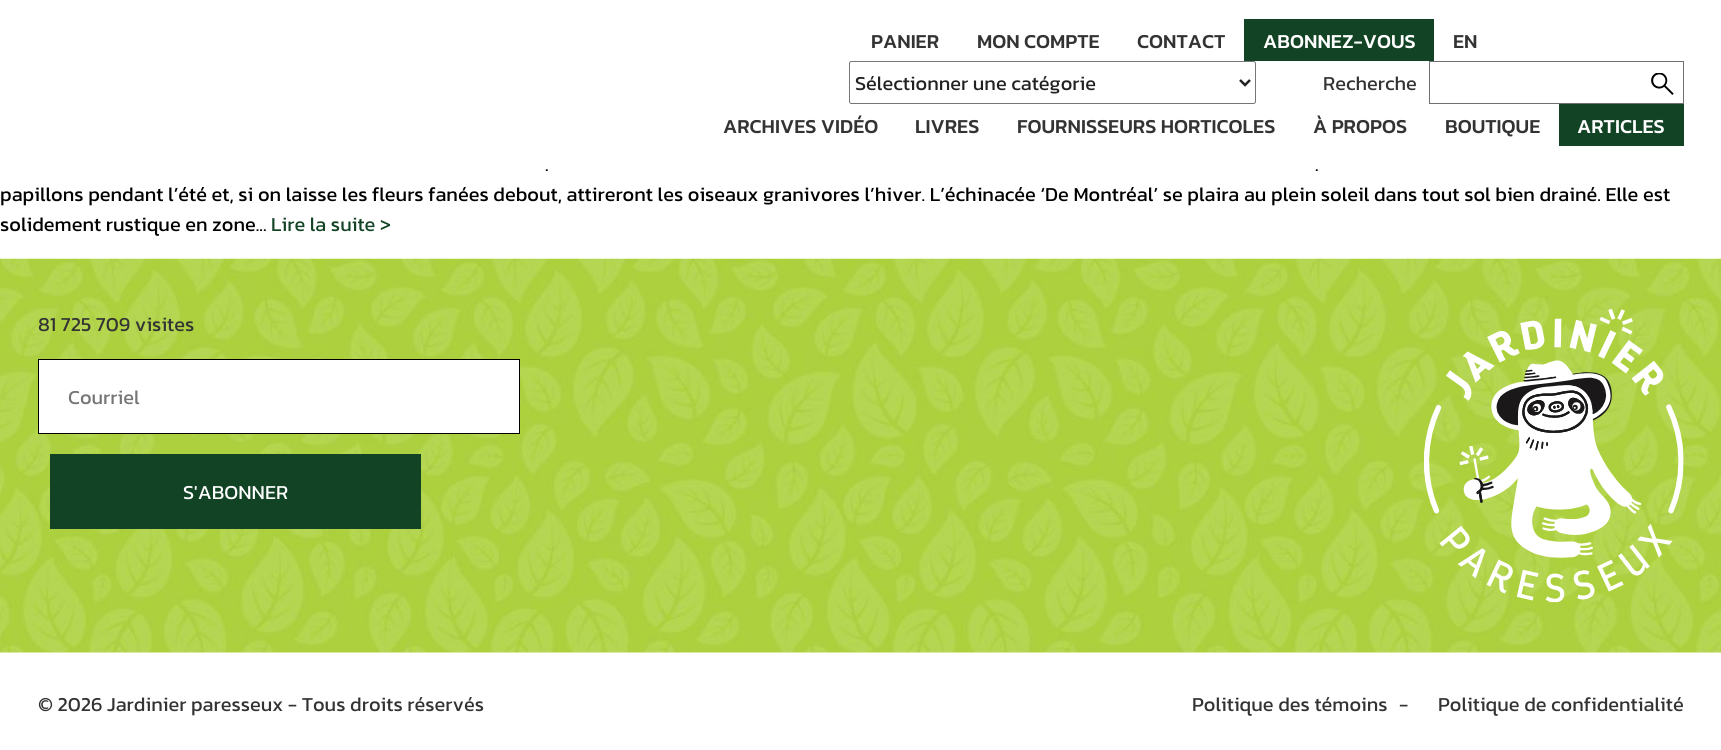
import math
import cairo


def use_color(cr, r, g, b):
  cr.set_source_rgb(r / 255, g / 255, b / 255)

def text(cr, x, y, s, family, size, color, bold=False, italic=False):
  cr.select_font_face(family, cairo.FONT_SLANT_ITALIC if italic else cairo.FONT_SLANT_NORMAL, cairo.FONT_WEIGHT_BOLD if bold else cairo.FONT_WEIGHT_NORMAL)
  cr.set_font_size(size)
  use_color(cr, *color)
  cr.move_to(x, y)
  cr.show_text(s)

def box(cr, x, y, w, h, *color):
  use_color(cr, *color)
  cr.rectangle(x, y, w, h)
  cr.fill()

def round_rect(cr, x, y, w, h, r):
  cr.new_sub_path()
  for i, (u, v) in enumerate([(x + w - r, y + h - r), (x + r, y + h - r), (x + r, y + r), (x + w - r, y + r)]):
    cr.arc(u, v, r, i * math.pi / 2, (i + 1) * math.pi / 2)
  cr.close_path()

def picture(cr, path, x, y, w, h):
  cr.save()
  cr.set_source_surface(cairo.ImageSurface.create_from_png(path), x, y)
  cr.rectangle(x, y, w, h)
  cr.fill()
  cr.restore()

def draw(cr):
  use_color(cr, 255, 255, 255)
  cr.paint()
  box(cr, 1244, 19, 190, 42, 19, 67, 37)
  round_rect(cr, 849.5, 61.5, 406, 42, 2)
  use_color(cr, 118, 118, 118)
  cr.set_line_width(1)
  cr.stroke()
  cr.new_path()
  cr.move_to(1240, 80)
  cr.line_to(1245, 85)
  cr.line_to(1250, 80)
  use_color(cr, 34, 34, 34)
  cr.set_line_width(2.5)
  cr.stroke()
  cr.rectangle(1429.5, 61.5, 254, 42)
  use_color(cr, 112, 112, 112)
  cr.set_line_width(1)
  cr.stroke()
  picture(cr, "img_01.png", 1651, 73, 23, 22)
  box(cr, 1559, 104, 125, 42, 19, 67, 37)
  picture(cr, "img_02.png", 0, 258, 1721, 395)
  use_color(cr, 255, 255, 255)
  cr.rectangle(38.5, 359.5, 481, 74)
  cr.fill_preserve()
  use_color(cr, 0, 0, 0)
  cr.stroke()
  box(cr, 50, 454, 371, 75, 19, 67, 37)
  picture(cr, "img_03.png", 1424, 309, 260, 294)
  text(cr, 871, 48, "PANIER", "Kanit Medium", 20, (51, 51, 51))
  text(cr, 977, 48, "MON COMPTE", "Kanit Medium", 20, (51, 51, 51))
  text(cr, 1137, 48, "CONTACT", "Kanit Medium", 20, (51, 51, 51))
  text(cr, 1263, 48, "ABONNEZ-VOUS", "Kanit Medium", 20, (255, 255, 255))
  text(cr, 1453, 48, "EN", "Kanit Medium", 20, (51, 51, 51))
  text(cr, 855, 90, "Sélectionner une catégorie", "Kanit", 20, (34, 34, 34))
  text(cr, 1323, 90, "Recherche", "Kanit", 20, (51, 51, 51))
  text(cr, 723, 133, "ARCHIVES VIDÉO", "Kanit Medium", 20, (51, 51, 51))
  text(cr, 915, 133, "LIVRES", "Kanit Medium", 20, (51, 51, 51))
  text(cr, 1017, 133, "FOURNISSEURS HORTICOLES", "Kanit Medium", 20, (51, 51, 51))
  text(cr, 1313, 133, "À PROPOS", "Kanit Medium", 20, (51, 51, 51))
  text(cr, 1445, 133, "BOUTIQUE", "Kanit Medium", 20, (51, 51, 51))
  text(cr, 1577, 133, "ARTICLES", "Kanit Medium", 20, (255, 255, 255))
  text(cr, 545, 171, ".", "Kanit", 20, (0, 0, 0))
  text(cr, 1315, 171, ".", "Kanit", 20, (0, 0, 0))
  text(cr, 0, 201, "papillons pendant l’été et, si on laisse les fleurs fanées debout, attireront les oiseaux granivores l’hiver. L’échinacée ‘De Montréal’ se plaira au plein soleil dans tout sol bien drainé. Elle est", "Kanit", 20, (0, 0, 0))
  text(cr, 0, 231, "solidement rustique en zone...", "Kanit", 20, (0, 0, 0))
  text(cr, 271, 231, "Lire la suite >", "Kanit", 20, (19, 67, 37))
  text(cr, 38, 331, "81 725 709 visites", "Kanit", 20, (51, 51, 51))
  text(cr, 68, 404, "Courriel", "Kanit", 20, (117, 117, 117))
  text(cr, 183, 499, "S'ABONNER", "Kanit", 20, (255, 255, 255))
  text(cr, 38, 711, "© 2026 Jardinier paresseux - Tous droits réservés", "Kanit", 20, (51, 51, 51))
  text(cr, 1192, 711, "Politique des témoins", "Kanit", 20, (51, 51, 51))
  text(cr, 1399, 711, "-", "Kanit", 20, (51, 51, 51))
  text(cr, 1438, 711, "Politique de confidentialité", "Kanit", 20, (51, 51, 51))


surface = cairo.ImageSurface(cairo.FORMAT_RGB24, 1721, 750)
cr = cairo.Context(surface)
options = cairo.FontOptions()
options.set_hint_metrics(cairo.HINT_METRICS_OFF)
options.set_hint_style(cairo.HINT_STYLE_NONE)
cr.set_font_options(options)
cr.set_miter_limit(4)
draw(cr)
surface.write_to_png("out.png")
